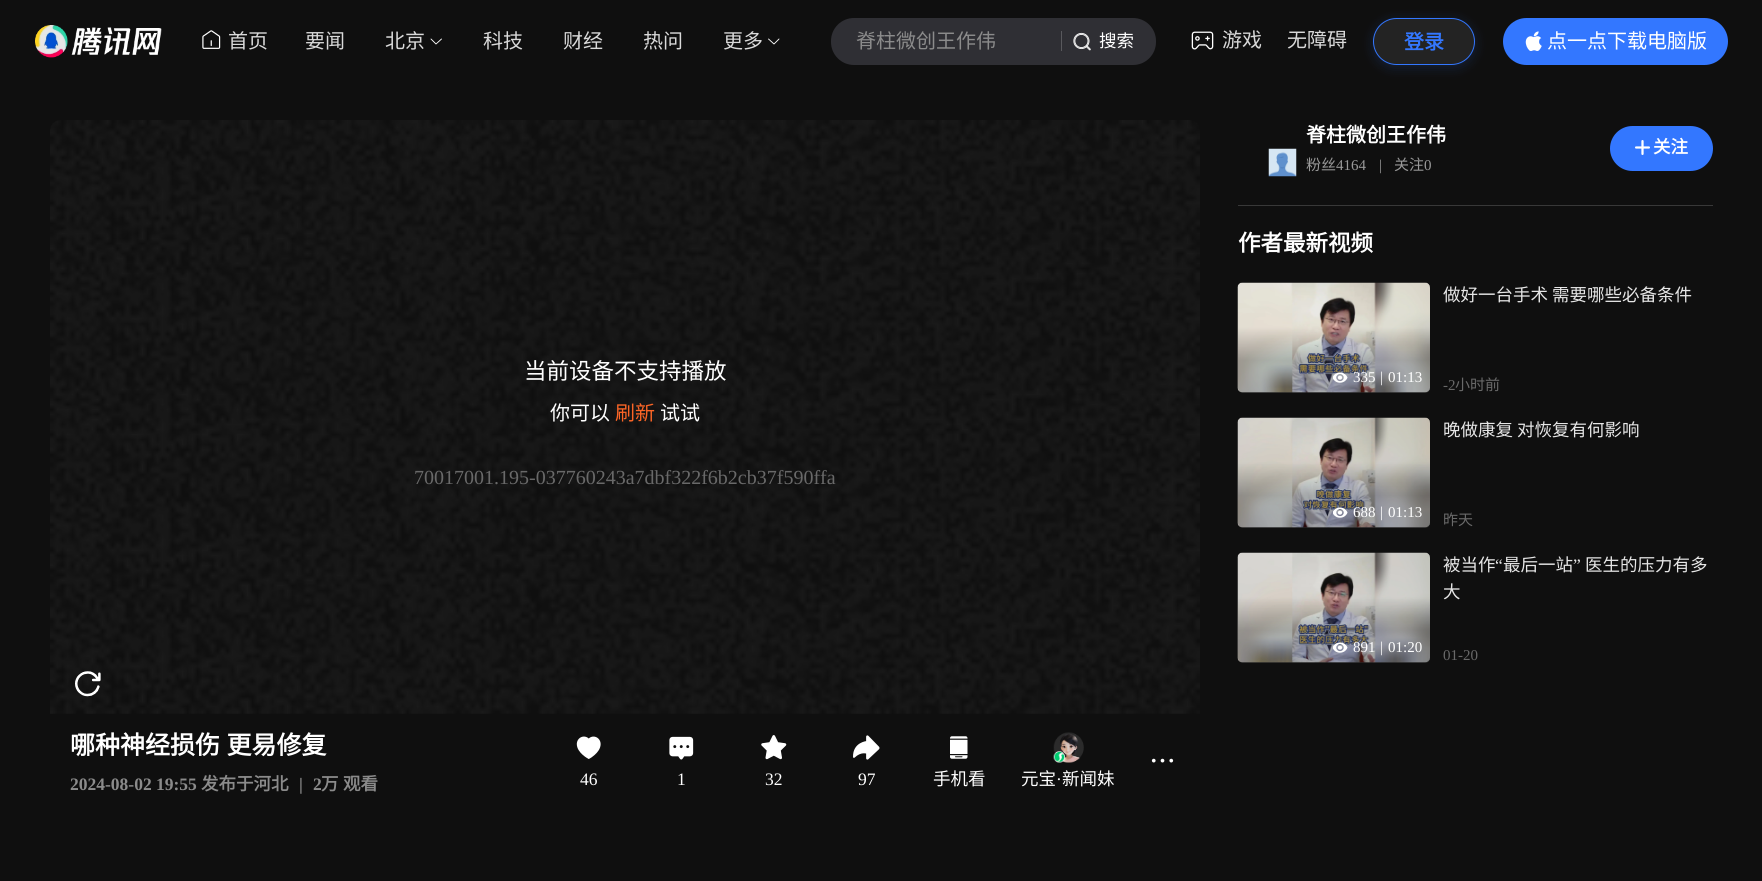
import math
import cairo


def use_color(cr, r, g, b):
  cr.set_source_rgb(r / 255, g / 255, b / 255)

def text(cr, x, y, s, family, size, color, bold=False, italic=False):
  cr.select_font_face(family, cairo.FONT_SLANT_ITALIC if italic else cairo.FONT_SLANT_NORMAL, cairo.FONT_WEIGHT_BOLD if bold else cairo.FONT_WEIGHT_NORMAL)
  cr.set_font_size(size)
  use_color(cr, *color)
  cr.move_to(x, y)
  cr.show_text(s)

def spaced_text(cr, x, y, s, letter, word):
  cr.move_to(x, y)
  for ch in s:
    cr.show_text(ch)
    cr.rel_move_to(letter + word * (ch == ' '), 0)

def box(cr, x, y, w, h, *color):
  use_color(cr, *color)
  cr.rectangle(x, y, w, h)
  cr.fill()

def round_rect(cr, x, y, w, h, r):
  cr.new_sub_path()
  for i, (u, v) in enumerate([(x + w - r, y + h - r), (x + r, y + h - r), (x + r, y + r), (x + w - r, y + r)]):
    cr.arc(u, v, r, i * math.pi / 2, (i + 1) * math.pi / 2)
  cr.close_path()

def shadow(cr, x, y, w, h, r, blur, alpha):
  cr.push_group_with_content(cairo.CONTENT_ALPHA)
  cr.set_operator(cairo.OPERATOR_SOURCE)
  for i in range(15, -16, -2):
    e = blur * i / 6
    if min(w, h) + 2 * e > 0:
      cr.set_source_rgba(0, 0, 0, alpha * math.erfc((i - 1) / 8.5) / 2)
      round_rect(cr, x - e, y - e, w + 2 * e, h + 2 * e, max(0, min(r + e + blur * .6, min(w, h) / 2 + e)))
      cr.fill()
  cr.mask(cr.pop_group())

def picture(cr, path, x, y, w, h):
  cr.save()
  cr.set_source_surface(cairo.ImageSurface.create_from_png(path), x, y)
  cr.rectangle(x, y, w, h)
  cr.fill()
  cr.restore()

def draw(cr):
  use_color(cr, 15, 15, 15)
  cr.paint()
  picture(cr, "img_01.png", 35, 25, 127, 33)
  picture(cr, "img_02.png", 202, 30, 19, 19)
  cr.new_path()
  cr.move_to(441.5, 39)
  cr.line_to(436, 44)
  cr.line_to(431, 39)
  use_color(cr, 255, 255, 255)
  cr.set_line_width(0.9)
  cr.set_line_cap(cairo.LINE_CAP_ROUND)
  cr.set_line_join(cairo.LINE_JOIN_ROUND)
  cr.stroke()
  cr.new_path()
  cr.move_to(779, 39)
  cr.line_to(774, 44)
  cr.line_to(768.5, 39)
  cr.stroke()
  use_color(cr, 47, 47, 52)
  round_rect(cr, 831, 18, 325, 47, 23)
  cr.fill()
  box(cr, 1061, 31, 1, 20, 89, 89, 93)
  picture(cr, "img_03.png", 1073, 32, 18, 19)
  picture(cr, "img_04.png", 1191, 31, 23, 19)
  cr.save()
  cr.set_fill_rule(cairo.FILL_RULE_EVEN_ODD)
  cr.new_path()
  cr.move_to(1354, 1)
  cr.line_to(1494, 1)
  cr.line_to(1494, 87)
  cr.line_to(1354, 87)
  cr.close_path()
  cr.move_to(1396.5, 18)
  cr.line_to(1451.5, 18)
  cr.curve_to(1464.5, 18, 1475, 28.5, 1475, 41.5)
  cr.curve_to(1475, 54.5, 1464.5, 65, 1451.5, 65)
  cr.line_to(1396.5, 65)
  cr.curve_to(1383.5, 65, 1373, 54.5, 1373, 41.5)
  cr.curve_to(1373, 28.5, 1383.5, 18, 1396.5, 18)
  cr.close_path()
  cr.clip()
  use_color(cr, 51, 119, 255)
  shadow(cr, 1373, 20, 102, 48, 24, 6, 0.16)
  cr.restore()
  cr.set_source_rgba(0.851, 0.851, 0.851, 0.1)
  round_rect(cr, 1373.5, 18.5, 101, 46, 23)
  cr.fill_preserve()
  use_color(cr, 51, 119, 255)
  cr.set_line_width(1)
  cr.set_line_cap(cairo.LINE_CAP_BUTT)
  cr.set_line_join(cairo.LINE_JOIN_MITER)
  cr.stroke()
  round_rect(cr, 1503, 18, 225, 47, 23.5)
  cr.fill()
  picture(cr, "img_05.png", 1525, 31, 17, 20)
  picture(cr, "img_06.png", 50, 120, 1150, 594)
  picture(cr, "img_07.png", 1151, 758, 23, 5)
  picture(cr, "img_08.png", 576, 736, 25, 23)
  picture(cr, "img_09.png", 669, 736, 25, 24)
  picture(cr, "img_10.png", 761, 735, 26, 25)
  picture(cr, "img_11.png", 853, 735, 27, 25)
  picture(cr, "img_12.png", 950, 736, 18, 23)
  picture(cr, "img_13.png", 1053, 732, 31, 31)
  picture(cr, "img_14.png", 1053, 751, 12, 12)
  picture(cr, "img_15.png", 1268, 148, 29, 29)
  round_rect(cr, 1610, 126, 103, 45, 22.5)
  cr.fill()
  picture(cr, "img_16.png", 1635, 140, 15, 15)
  box(cr, 1238, 205, 475, 1, 56, 56, 56)
  use_color(cr, 51, 51, 51)
  round_rect(cr, 1238, 283, 192, 110, 5)
  cr.fill()
  picture(cr, "img_17.png", 1237, 282, 193, 111)
  gradient = cairo.LinearGradient(1334, 393, 1334, 283)
  gradient.add_color_stop_rgba(0.3, 0, 0, 0, 0.3)
  gradient.add_color_stop_rgba(0.6, 0, 0, 0, 0)
  cr.set_source(gradient)
  round_rect(cr, 1238, 283, 192, 110, 5)
  cr.fill()
  picture(cr, "img_18.png", 1333, 372, 15, 11)
  use_color(cr, 51, 51, 51)
  round_rect(cr, 1238, 418, 192, 110, 5)
  cr.fill()
  picture(cr, "img_19.png", 1237, 417, 193, 111)
  gradient = cairo.LinearGradient(1334, 528, 1334, 418)
  gradient.add_color_stop_rgba(0.3, 0, 0, 0, 0.3)
  gradient.add_color_stop_rgba(0.6, 0, 0, 0, 0)
  cr.set_source(gradient)
  round_rect(cr, 1238, 418, 192, 110, 5)
  cr.fill()
  picture(cr, "img_20.png", 1333, 507, 15, 11)
  use_color(cr, 51, 51, 51)
  round_rect(cr, 1238, 553, 192, 110, 5)
  cr.fill()
  picture(cr, "img_21.png", 1237, 552, 193, 111)
  gradient = cairo.LinearGradient(1334, 663, 1334, 553)
  gradient.add_color_stop_rgba(0.3, 0, 0, 0, 0.3)
  gradient.add_color_stop_rgba(0.6, 0, 0, 0, 0)
  cr.set_source(gradient)
  round_rect(cr, 1238, 553, 192, 110, 5)
  cr.fill()
  picture(cr, "img_22.png", 1333, 642, 15, 11)
  text(cr, 228, 48, "首页", "Noto Sans CJK SC", 20, (217, 217, 217))
  text(cr, 305, 48, "要闻", "Noto Sans CJK SC", 20, (217, 217, 217))
  text(cr, 385, 48, "北京", "Noto Sans CJK SC", 20, (217, 217, 217))
  text(cr, 483, 48, "科技", "Noto Sans CJK SC", 20, (217, 217, 217))
  text(cr, 563, 48, "财经", "Noto Sans CJK SC", 20, (217, 217, 217))
  text(cr, 643, 48, "热问", "Noto Sans CJK SC", 20, (217, 217, 217))
  text(cr, 723, 48, "更多", "Noto Sans CJK SC", 20, (217, 217, 217))
  text(cr, 856, 48, "脊柱微创王作伟", "Noto Sans CJK SC", 20, (139, 139, 139))
  text(cr, 1099, 47, "搜索", "Noto Sans CJK SC", 17.5, (255, 255, 255))
  text(cr, 1222, 47, "游戏", "Noto Sans CJK SC", 20, (217, 217, 217))
  text(cr, 1287, 47, "无障碍", "Noto Sans CJK SC", 20, (217, 217, 217))
  text(cr, 1404, 49, "登录", "Noto Sans CJK SC", 20, (51, 119, 255), bold=True)
  text(cr, 1547, 48, "点一点下载电脑版", "Noto Sans CJK SC", 20, (255, 255, 255))
  text(cr, 524, 379, "当前设备不支持播放", "Noto Sans CJK SC", 22.5, (255, 255, 255))
  text(cr, 550, 420, "你可以", "Noto Sans CJK SC", 20, (255, 255, 255))
  text(cr, 615, 420, "刷新", "Noto Sans CJK SC", 20, (252, 101, 38))
  text(cr, 660, 420, "试试", "Noto Sans CJK SC", 20, (255, 255, 255))
  text(cr, 414, 484, "70017001.195-037760243a7dbf322f6b2cb37f590ffa", "Liberation Serif", 20, (105, 105, 105))
  cr.select_font_face("Noto Sans CJK SC", cairo.FONT_SLANT_NORMAL, cairo.FONT_WEIGHT_BOLD)
  cr.set_font_size(25)
  use_color(cr, 255, 255, 255)
  spaced_text(cr, 70, 754, "哪种神经损伤 更易修复", 0, 1)
  text(cr, 70, 790, "2024-08-02 19:55", "Liberation Serif", 17.5, (139, 139, 139), bold=True)
  text(cr, 201, 790, "发布于河北", "Noto Sans CJK SC", 17.5, (139, 139, 139), bold=True)
  text(cr, 299, 790, "|", "Liberation Serif", 17.5, (139, 139, 139), bold=True)
  text(cr, 313, 790, "2", "Liberation Serif", 17.5, (139, 139, 139), bold=True)
  text(cr, 321, 790, "万", "Noto Sans CJK SC", 17.5, (139, 139, 139), bold=True)
  text(cr, 343, 790, "观看", "Noto Sans CJK SC", 17.5, (139, 139, 139), bold=True)
  text(cr, 580, 785, "46", "Liberation Serif", 17.5, (255, 255, 255))
  text(cr, 677, 785, "1", "Liberation Serif", 17.5, (255, 255, 255))
  text(cr, 765, 785, "32", "Liberation Serif", 17.5, (255, 255, 255))
  text(cr, 858, 785, "97", "Liberation Serif", 17.5, (255, 255, 255))
  text(cr, 933, 785, "手机看", "Noto Sans CJK SC", 17.5, (255, 255, 255))
  text(cr, 1021, 785, "元宝", "Noto Sans CJK SC", 17.5, (255, 255, 255))
  text(cr, 1056, 785, "·", "Liberation Serif", 17.5, (255, 255, 255))
  text(cr, 1062, 785, "新闻妹", "Noto Sans CJK SC", 17.5, (255, 255, 255))
  text(cr, 1306, 142, "脊柱微创王作伟", "Noto Sans CJK SC", 20, (255, 255, 255), bold=True)
  text(cr, 1306, 170, "粉丝", "Noto Sans CJK SC", 15, (153, 153, 153))
  text(cr, 1336, 170, "4164", "Liberation Serif", 15, (153, 153, 153))
  text(cr, 1379, 170, "|", "Liberation Serif", 15, (153, 153, 153))
  text(cr, 1394, 170, "关注", "Noto Sans CJK SC", 15, (153, 153, 153))
  text(cr, 1424, 170, "0", "Liberation Serif", 15, (153, 153, 153))
  text(cr, 1653, 153, "关注", "Noto Sans CJK SC", 17.5, (255, 255, 255), bold=True)
  text(cr, 1238, 251, "作者最新视频", "Noto Sans CJK SC", 22.5, (255, 255, 255), bold=True)
  text(cr, 1353, 382, "335", "Liberation Serif", 15, (255, 255, 255))
  text(cr, 1380, 382, "|", "Liberation Serif", 15, (255, 255, 255))
  text(cr, 1388, 382, "01:13", "Liberation Serif", 15, (255, 255, 255))
  text(cr, 1443, 301, "做好一台手术 需要哪些必备条件", "Noto Sans CJK SC", 17.5, (230, 230, 230))
  text(cr, 1443, 390, "-2", "Liberation Serif", 15, (105, 105, 105))
  text(cr, 1455, 390, "小时前", "Noto Sans CJK SC", 15, (105, 105, 105))
  text(cr, 1353, 517, "688", "Liberation Serif", 15, (255, 255, 255))
  text(cr, 1380, 517, "|", "Liberation Serif", 15, (255, 255, 255))
  text(cr, 1388, 517, "01:13", "Liberation Serif", 15, (255, 255, 255))
  text(cr, 1443, 436, "晚做康复 对恢复有何影响", "Noto Sans CJK SC", 17.5, (230, 230, 230))
  text(cr, 1443, 525, "昨天", "Noto Sans CJK SC", 15, (105, 105, 105))
  text(cr, 1353, 652, "891", "Liberation Serif", 15, (255, 255, 255))
  text(cr, 1380, 652, "|", "Liberation Serif", 15, (255, 255, 255))
  text(cr, 1388, 652, "01:20", "Liberation Serif", 15, (255, 255, 255))
  text(cr, 1443, 571, "被当作", "Noto Sans CJK SC", 17.5, (230, 230, 230))
  text(cr, 1495, 571, "“", "Liberation Serif", 17.5, (230, 230, 230))
  text(cr, 1503, 571, "最后一站", "Noto Sans CJK SC", 17.5, (230, 230, 230))
  text(cr, 1573, 571, "”", "Liberation Serif", 17.5, (230, 230, 230))
  text(cr, 1585, 571, "医生的压力有多", "Noto Sans CJK SC", 17.5, (230, 230, 230))
  text(cr, 1443, 598, "大", "Noto Sans CJK SC", 17.5, (230, 230, 230))
  text(cr, 1443, 660, "01-20", "Liberation Serif", 15, (105, 105, 105))


surface = cairo.ImageSurface(cairo.FORMAT_RGB24, 1762, 881)
cr = cairo.Context(surface)
options = cairo.FontOptions()
options.set_hint_metrics(cairo.HINT_METRICS_OFF)
options.set_hint_style(cairo.HINT_STYLE_NONE)
cr.set_font_options(options)
cr.set_miter_limit(4)
draw(cr)
surface.write_to_png("out.png")
